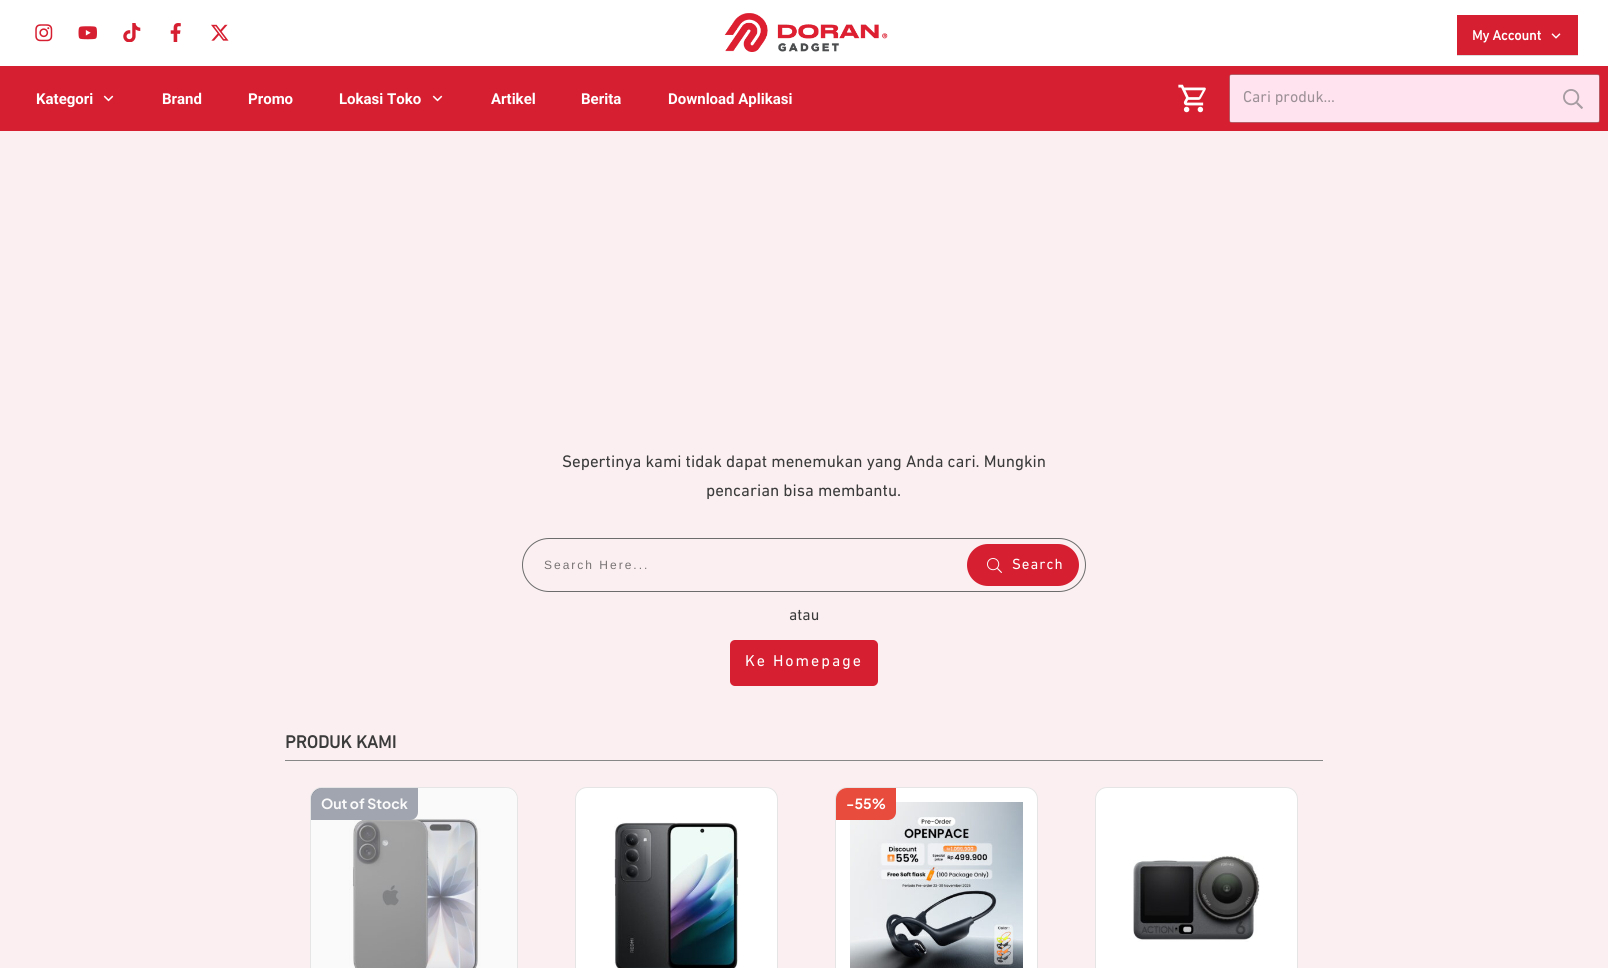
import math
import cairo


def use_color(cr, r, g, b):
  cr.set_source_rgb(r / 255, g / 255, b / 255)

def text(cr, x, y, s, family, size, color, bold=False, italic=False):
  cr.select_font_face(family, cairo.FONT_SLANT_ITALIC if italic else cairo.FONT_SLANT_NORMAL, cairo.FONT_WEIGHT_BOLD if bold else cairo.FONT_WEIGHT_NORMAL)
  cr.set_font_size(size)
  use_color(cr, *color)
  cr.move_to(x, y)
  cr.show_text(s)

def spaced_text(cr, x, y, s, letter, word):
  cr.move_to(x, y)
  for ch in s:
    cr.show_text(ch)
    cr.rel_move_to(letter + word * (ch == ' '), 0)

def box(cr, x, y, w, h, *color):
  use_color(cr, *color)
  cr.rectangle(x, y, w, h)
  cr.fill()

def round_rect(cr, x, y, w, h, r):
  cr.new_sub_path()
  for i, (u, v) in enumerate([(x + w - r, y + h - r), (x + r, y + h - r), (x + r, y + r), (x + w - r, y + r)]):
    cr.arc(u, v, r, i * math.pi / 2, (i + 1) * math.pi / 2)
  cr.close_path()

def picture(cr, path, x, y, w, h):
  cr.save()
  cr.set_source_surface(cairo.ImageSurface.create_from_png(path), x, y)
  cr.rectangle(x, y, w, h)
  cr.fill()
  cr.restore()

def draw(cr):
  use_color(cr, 251, 239, 241)
  cr.paint()
  box(cr, 0, 0, 1608, 66, 255, 255, 255)
  picture(cr, "img_01.png", 35, 24, 18, 18)
  picture(cr, "img_02.png", 78, 26, 19, 14)
  picture(cr, "img_03.png", 123, 23, 18, 19)
  picture(cr, "img_04.png", 170, 23, 11, 19)
  picture(cr, "img_05.png", 211, 24, 18, 17)
  picture(cr, "img_06.png", 724, 13, 164, 39)
  box(cr, 1457, 55, 121, 1, 221, 221, 221)
  box(cr, 1457, 15, 121, 40, 214, 31, 49)
  picture(cr, "img_07.png", 1551, 33, 10, 6)
  box(cr, 0, 66, 1608, 65, 214, 31, 49)
  picture(cr, "img_08.png", 103, 95, 11, 7)
  picture(cr, "img_08.png", 432, 95, 11, 7)
  picture(cr, "img_09.png", 1178, 84, 28, 29)
  box(cr, 1230, 75, 369, 47, 255, 228, 240)
  round_rect(cr, 1229.5, 74.5, 370, 48, 2.5)
  cr.set_source_rgba(0.592, 0.592, 0.592, 0.5)
  cr.set_line_width(1)
  cr.stroke()
  picture(cr, "img_10.png", 1563, 89, 20, 20)
  round_rect(cr, 522.5, 538.5, 563, 53, 26.5)
  use_color(cr, 108, 108, 108)
  cr.stroke()
  use_color(cr, 214, 31, 49)
  round_rect(cr, 967, 544, 112, 42, 21)
  cr.fill()
  picture(cr, "img_11.png", 987, 558, 15, 15)
  round_rect(cr, 730, 640, 148, 46, 5)
  cr.fill()
  box(cr, 285, 760, 1038, 1, 135, 135, 135)
  use_color(cr, 255, 255, 255)
  round_rect(cr, 310.5, 787.5, 207, 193, 11.5)
  cr.fill_preserve()
  use_color(cr, 229, 229, 229)
  cr.stroke()
  picture(cr, "img_12.png", 349, 818, 132, 150)
  use_color(cr, 107, 114, 128)
  cr.new_path()
  cr.move_to(322, 788)
  cr.line_to(418, 788)
  cr.line_to(418, 812)
  cr.curve_to(418, 816.5, 414.5, 820, 410, 820)
  cr.line_to(311, 820)
  cr.line_to(311, 799)
  cr.curve_to(311, 793, 316, 788, 322, 788)
  cr.close_path()
  cr.fill()
  use_color(cr, 255, 255, 255)
  round_rect(cr, 575.5, 787.5, 202, 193, 11.5)
  cr.fill_preserve()
  use_color(cr, 229, 229, 229)
  cr.stroke()
  picture(cr, "img_13.png", 614, 822, 125, 146)
  use_color(cr, 255, 255, 255)
  round_rect(cr, 835.5, 787.5, 202, 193, 11.5)
  cr.fill_preserve()
  use_color(cr, 229, 229, 229)
  cr.stroke()
  picture(cr, "img_14.png", 850, 802, 173, 166)
  use_color(cr, 231, 76, 60)
  cr.new_path()
  cr.move_to(847, 788)
  cr.line_to(896, 788)
  cr.line_to(896, 812)
  cr.curve_to(896, 816.5, 892.5, 820, 888, 820)
  cr.line_to(836, 820)
  cr.line_to(836, 799)
  cr.curve_to(836, 793, 841, 788, 847, 788)
  cr.close_path()
  cr.fill()
  use_color(cr, 255, 255, 255)
  round_rect(cr, 1095.5, 787.5, 202, 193, 11.5)
  cr.fill_preserve()
  use_color(cr, 229, 229, 229)
  cr.stroke()
  picture(cr, "img_15.png", 1133, 855, 127, 87)
  text(cr, 1472, 40, "My Account", "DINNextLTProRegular", 14, (255, 255, 255), bold=True)
  text(cr, 36, 104, "Kategori", "Roboto", 15, (255, 255, 255), bold=True)
  text(cr, 162, 104, "Brand", "Roboto", 15, (255, 255, 255), bold=True)
  text(cr, 248, 104, "Promo", "Roboto", 15, (255, 255, 255), bold=True)
  text(cr, 339, 104, "Lokasi Toko", "Roboto", 15, (255, 255, 255), bold=True)
  text(cr, 491, 104, "Artikel", "Roboto", 15, (255, 255, 255), bold=True)
  text(cr, 581, 104, "Berita", "Roboto", 15, (255, 255, 255), bold=True)
  text(cr, 668, 104, "Download Aplikasi", "Roboto", 15, (255, 255, 255), bold=True)
  text(cr, 1243, 102, "Cari produk…", "DINNextLTProRegular", 16, (157, 144, 150))
  text(cr, 562, 467, "Sepertinya kami tidak dapat menemukan yang Anda cari. Mungkin", "DINNextLTProRegular", 17, (59, 59, 59))
  text(cr, 706, 496, "pencarian bisa membantu.", "DINNextLTProRegular", 17, (59, 59, 59))
  cr.select_font_face("Liberation Sans")
  cr.set_font_size(12)
  use_color(cr, 120, 115, 116)
  spaced_text(cr, 544, 569, "Search Here...", 2, 0)
  cr.select_font_face("DINNextLTProRegular")
  cr.set_font_size(15)
  use_color(cr, 255, 255, 255)
  spaced_text(cr, 1012, 569, "Search", 1, 0)
  text(cr, 789, 620, "atau", "DINNextLTProRegular", 16, (59, 59, 59))
  use_color(cr, 255, 255, 255)
  spaced_text(cr, 745, 666, "Ke Homepage", 2, 0)
  text(cr, 285, 748, "PRODUK KAMI", "DINNextLTProRegular", 18, (59, 59, 59), bold=True)
  text(cr, 321, 809, "Out of Stock", "Plus Jakarta Sans", 14, (255, 255, 255), bold=True)
  cr.set_source_rgba(0.953, 0.957, 0.965, 0.4)
  round_rect(cr, 311, 788, 206, 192, 12)
  cr.fill()
  text(cr, 846, 809, "-55%", "Plus Jakarta Sans", 14, (255, 255, 255), bold=True)


surface = cairo.ImageSurface(cairo.FORMAT_RGB24, 1608, 968)
cr = cairo.Context(surface)
options = cairo.FontOptions()
options.set_hint_metrics(cairo.HINT_METRICS_OFF)
options.set_hint_style(cairo.HINT_STYLE_NONE)
cr.set_font_options(options)
cr.set_miter_limit(4)
draw(cr)
surface.write_to_png("out.png")
